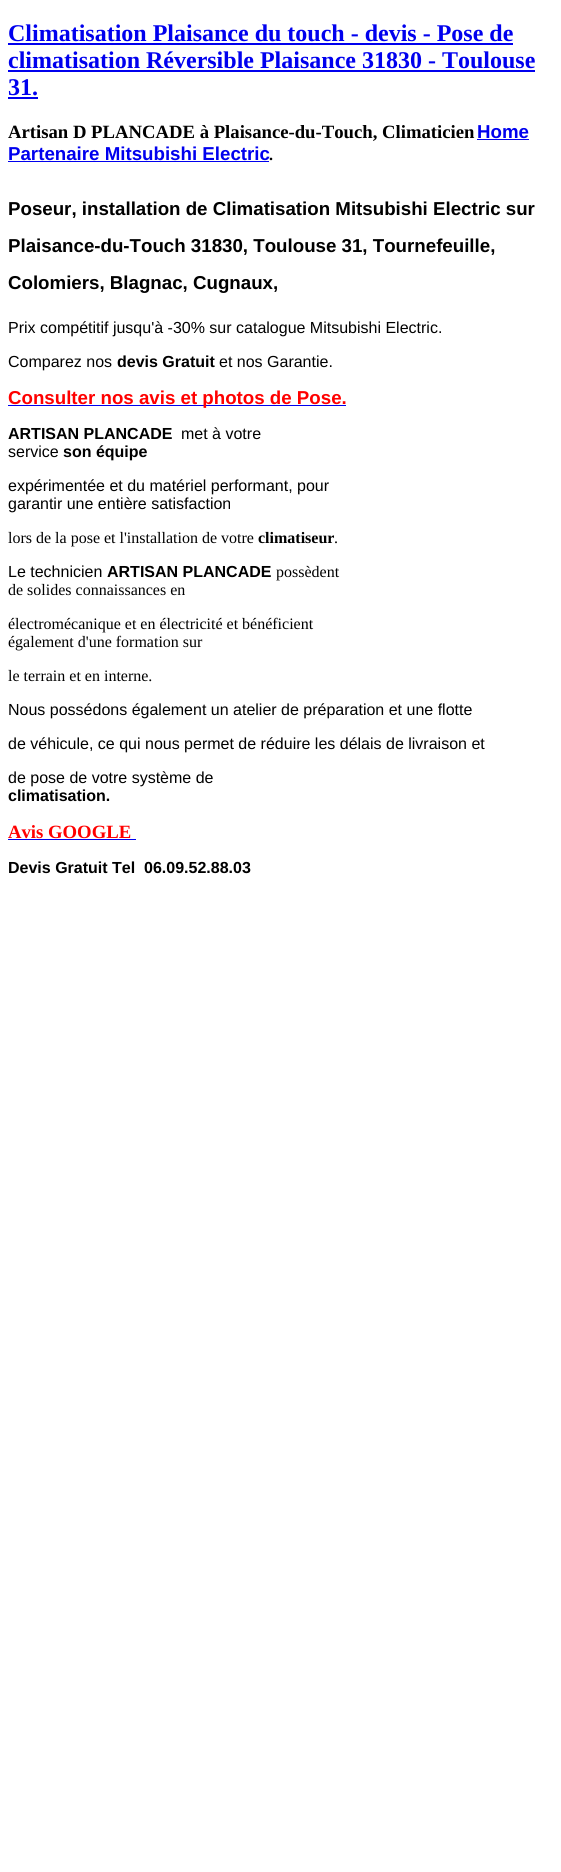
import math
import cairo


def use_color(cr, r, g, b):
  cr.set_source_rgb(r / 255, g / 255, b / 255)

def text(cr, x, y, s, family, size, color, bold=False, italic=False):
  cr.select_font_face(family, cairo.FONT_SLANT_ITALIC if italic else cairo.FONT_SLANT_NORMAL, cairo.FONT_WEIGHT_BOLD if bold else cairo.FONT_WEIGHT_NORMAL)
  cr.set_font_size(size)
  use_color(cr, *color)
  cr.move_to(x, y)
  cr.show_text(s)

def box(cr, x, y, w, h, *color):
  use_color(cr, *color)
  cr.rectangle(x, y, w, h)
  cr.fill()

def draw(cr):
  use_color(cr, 255, 255, 255)
  cr.paint()
  box(cr, 8, 43, 505, 2, 0, 0, 238)
  box(cr, 8, 70, 527, 2, 0, 0, 238)
  box(cr, 8, 97, 30, 2, 0, 0, 238)
  box(cr, 477, 139, 52, 1, 0, 0, 238)
  box(cr, 8, 161, 261, 1, 0, 0, 238)
  box(cr, 8, 405, 338, 1, 0, 0, 238)
  box(cr, 8, 839, 128, 1, 0, 0, 238)
  text(cr, 8, 41, "Climatisation Plaisance du touch - devis - Pose de", "Liberation Serif", 24, (0, 0, 238), bold=True)
  text(cr, 8, 68, "climatisation Réversible Plaisance 31830 - Toulouse", "Liberation Serif", 24, (0, 0, 238), bold=True)
  text(cr, 8, 95, "31.", "Liberation Serif", 24, (0, 0, 238), bold=True)
  text(cr, 8, 138, "Artisan D PLANCADE à Plaisance-du-Touch, Climaticien", "Liberation Serif", 18.7, (0, 0, 0), bold=True)
  text(cr, 477, 138, "Home", "Liberation Sans", 18.7, (0, 0, 238), bold=True)
  text(cr, 8, 160, "Partenaire Mitsubishi Electric", "Liberation Sans", 18.7, (0, 0, 238), bold=True)
  text(cr, 269, 160, ".", "Liberation Serif", 16, (0, 0, 0), bold=True)
  text(cr, 8, 215, "Poseur, installation de Climatisation Mitsubishi Electric sur", "Liberation Sans", 18.7, (0, 0, 0), bold=True)
  text(cr, 8, 252, "Plaisance-du-Touch 31830, Toulouse 31, Tournefeuille,", "Liberation Sans", 18.7, (0, 0, 0), bold=True)
  text(cr, 8, 289, "Colomiers, Blagnac, Cugnaux,", "Liberation Sans", 18.7, (0, 0, 0), bold=True)
  text(cr, 8, 333, "Prix compétitif jusqu'à -30% sur catalogue Mitsubishi Electric.", "Liberation Sans", 16, (0, 0, 0))
  text(cr, 8, 367, "Comparez nos", "Liberation Sans", 16, (0, 0, 0))
  text(cr, 117, 367, "devis Gratuit", "Liberation Sans", 16, (0, 0, 0), bold=True)
  text(cr, 219, 367, "et nos Garantie.", "Liberation Sans", 16, (0, 0, 0))
  text(cr, 8, 404, "Consulter nos avis et photos de Pose.", "Liberation Sans", 18.7, (255, 0, 0), bold=True)
  text(cr, 8, 439, "ARTISAN PLANCADE", "Liberation Sans", 16, (0, 0, 0), bold=True)
  text(cr, 181, 439, "met à votre", "Liberation Sans", 16, (0, 0, 0))
  text(cr, 8, 457, "service", "Liberation Sans", 16, (0, 0, 0))
  text(cr, 63, 457, "son équipe", "Liberation Sans", 16, (0, 0, 0), bold=True)
  text(cr, 8, 491, "expérimentée et du matériel performant, pour", "Liberation Sans", 16, (0, 0, 0))
  text(cr, 8, 509, "garantir une entière satisfaction", "Liberation Sans", 16, (0, 0, 0))
  text(cr, 8, 543, "lors de la pose et l'installation de votre", "Liberation Serif", 16, (0, 0, 0))
  text(cr, 258, 543, "climatiseur", "Liberation Serif", 16, (0, 0, 0), bold=True)
  text(cr, 334, 543, ".", "Liberation Serif", 16, (0, 0, 0))
  text(cr, 8, 577, "Le technicien", "Liberation Sans", 16, (0, 0, 0))
  text(cr, 107, 577, "ARTISAN PLANCADE", "Liberation Sans", 16, (0, 0, 0), bold=True)
  text(cr, 276, 577, "possèdent", "Liberation Serif", 16, (0, 0, 0))
  text(cr, 8, 595, "de solides connaissances en", "Liberation Serif", 16, (0, 0, 0))
  text(cr, 8, 629, "électromécanique et en électricité et bénéficient", "Liberation Serif", 16, (0, 0, 0))
  text(cr, 8, 647, "également d'une formation sur", "Liberation Serif", 16, (0, 0, 0))
  text(cr, 8, 681, "le terrain et en interne.", "Liberation Serif", 16, (0, 0, 0))
  text(cr, 8, 715, "Nous possédons également un atelier de préparation et une flotte", "Liberation Sans", 16, (0, 0, 0))
  text(cr, 8, 749, "de véhicule, ce qui nous permet de réduire les délais de livraison et", "Liberation Sans", 16, (0, 0, 0))
  text(cr, 8, 783, "de pose de votre système de", "Liberation Sans", 16, (0, 0, 0))
  text(cr, 8, 801, "climatisation.", "Liberation Sans", 16, (0, 0, 0), bold=True)
  text(cr, 8, 838, "Avis GOOGLE", "Liberation Serif", 18.7, (255, 0, 0), bold=True)
  text(cr, 8, 873, "Devis Gratuit Tel  06.09.52.88.03", "Liberation Sans", 16, (0, 0, 0), bold=True)


surface = cairo.ImageSurface(cairo.FORMAT_RGB24, 561, 1872)
cr = cairo.Context(surface)
options = cairo.FontOptions()
options.set_hint_metrics(cairo.HINT_METRICS_OFF)
options.set_hint_style(cairo.HINT_STYLE_NONE)
cr.set_font_options(options)
cr.set_miter_limit(4)
draw(cr)
surface.write_to_png("out.png")
